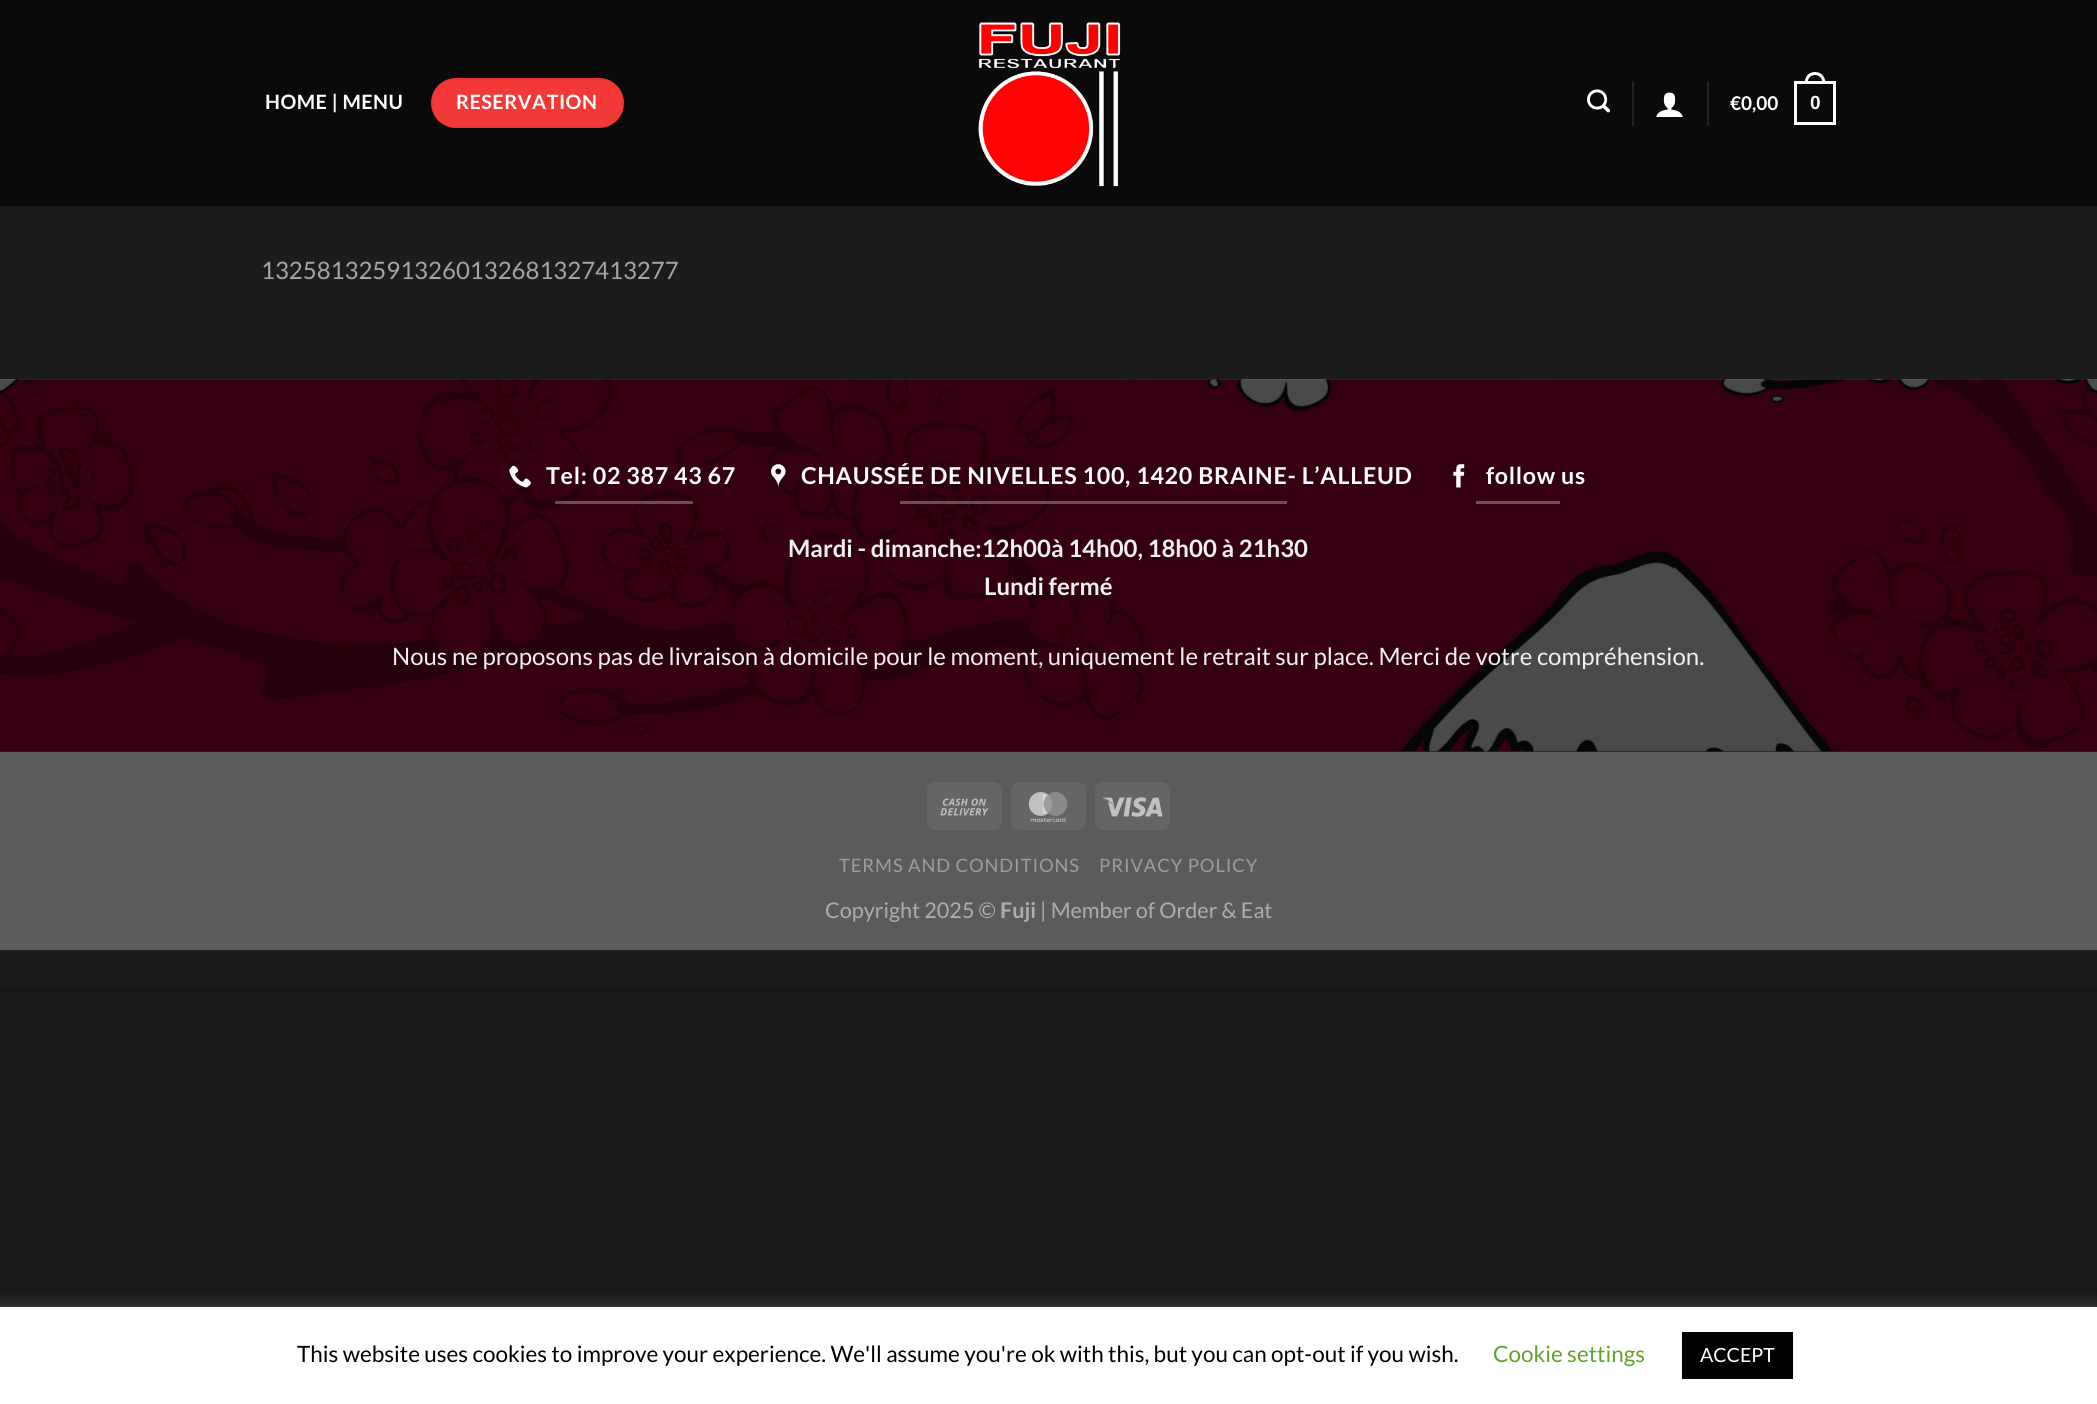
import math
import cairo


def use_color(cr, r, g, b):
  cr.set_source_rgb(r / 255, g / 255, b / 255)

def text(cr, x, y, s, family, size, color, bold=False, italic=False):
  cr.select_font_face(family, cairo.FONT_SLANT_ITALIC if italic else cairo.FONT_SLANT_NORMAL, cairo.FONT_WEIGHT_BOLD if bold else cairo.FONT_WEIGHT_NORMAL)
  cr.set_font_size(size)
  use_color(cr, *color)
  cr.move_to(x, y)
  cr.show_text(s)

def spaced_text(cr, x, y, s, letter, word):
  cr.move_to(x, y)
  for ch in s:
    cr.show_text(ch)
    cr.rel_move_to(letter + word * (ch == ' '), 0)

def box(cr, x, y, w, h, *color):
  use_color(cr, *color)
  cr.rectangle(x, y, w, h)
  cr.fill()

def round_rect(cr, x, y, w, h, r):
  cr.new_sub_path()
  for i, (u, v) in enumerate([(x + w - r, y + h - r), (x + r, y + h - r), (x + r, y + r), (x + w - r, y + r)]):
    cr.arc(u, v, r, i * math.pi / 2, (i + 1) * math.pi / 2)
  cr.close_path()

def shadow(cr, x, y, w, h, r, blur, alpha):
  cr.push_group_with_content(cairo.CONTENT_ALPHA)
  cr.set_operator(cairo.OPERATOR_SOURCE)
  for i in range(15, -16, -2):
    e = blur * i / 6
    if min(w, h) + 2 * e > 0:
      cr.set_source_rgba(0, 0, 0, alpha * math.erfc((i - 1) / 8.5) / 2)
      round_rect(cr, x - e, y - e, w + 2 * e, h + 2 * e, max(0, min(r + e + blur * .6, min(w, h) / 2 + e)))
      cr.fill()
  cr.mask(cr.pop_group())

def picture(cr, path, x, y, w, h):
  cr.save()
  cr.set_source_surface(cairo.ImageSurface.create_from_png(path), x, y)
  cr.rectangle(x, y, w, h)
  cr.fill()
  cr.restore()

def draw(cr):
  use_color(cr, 24, 24, 24)
  cr.paint()
  box(cr, 0, 206, 2097, 781, 28, 28, 28)
  box(cr, 0, 0, 2097, 206, 10, 10, 10)
  use_color(cr, 244, 56, 56)
  round_rect(cr, 431, 78, 193, 50, 25)
  cr.fill()
  cr.rectangle(432, 79, 191, 48)
  cr.set_source_rgba(0, 0, 0, 0.05)
  cr.stroke()
  picture(cr, "img_01.png", 978, 22, 143, 165)
  picture(cr, "img_02.png", 1587, 89, 23, 24)
  box(cr, 1632, 81, 2, 45, 35, 35, 35)
  picture(cr, "img_03.png", 1656, 92, 27, 25)
  box(cr, 1707, 81, 2, 45, 35, 35, 35)
  cr.rectangle(1795.5, 82.5, 39, 41)
  use_color(cr, 255, 255, 255)
  cr.set_line_width(3)
  cr.stroke()
  cr.set_fill_rule(cairo.FILL_RULE_EVEN_ODD)
  cr.new_path()
  cr.move_to(1815, 72)
  cr.curve_to(1822, 72, 1825.5, 77.5, 1825.5, 84)
  cr.line_to(1804.5, 84)
  cr.curve_to(1804.5, 77.5, 1808, 72, 1815, 72)
  cr.close_path()
  cr.move_to(1815, 75)
  cr.curve_to(1820.5, 75, 1822.5, 79.5, 1822.5, 84)
  cr.line_to(1807.5, 84)
  cr.curve_to(1807.5, 79.5, 1809.5, 75, 1815, 75)
  cr.close_path()
  cr.fill()
  box(cr, 0, 751, 2097, 1, 37, 37, 37)
  picture(cr, "img_04.png", 0, 379, 2097, 373)
  picture(cr, "img_05.png", 509, 465, 22, 23)
  cr.set_source_rgba(1, 1, 1, 0.3)
  cr.rectangle(555, 501, 138, 3)
  cr.fill()
  picture(cr, "img_06.png", 771, 464, 15, 23)
  cr.rectangle(900, 501, 387, 3)
  cr.fill()
  picture(cr, "img_07.png", 1453, 464, 12, 24)
  box(cr, 1476, 501, 84, 3, 113, 77, 87)
  box(cr, 0, 752, 2097, 198, 91, 91, 91)
  use_color(cr, 101, 101, 101)
  round_rect(cr, 927, 782, 75, 48, 8)
  cr.fill()
  picture(cr, "img_08.png", 940, 798, 49, 18)
  round_rect(cr, 1011, 782, 75, 48, 8)
  cr.fill()
  picture(cr, "img_09.png", 1028, 792, 40, 30)
  round_rect(cr, 1095, 782, 75, 48, 8)
  cr.fill()
  picture(cr, "img_10.png", 1103, 797, 60, 20)
  use_color(cr, 172, 171, 171)
  shadow(cr, 0, 1305, 2097, 98, 0, 7.5, 0.3)
  box(cr, 0, 1307, 2097, 97, 255, 255, 255)
  box(cr, 1682, 1332, 111, 47, 0, 0, 0)
  cr.select_font_face("Lato", cairo.FONT_SLANT_NORMAL, cairo.FONT_WEIGHT_BOLD)
  cr.set_font_size(19.75)
  use_color(cr, 255, 255, 255)
  spaced_text(cr, 265, 109, "HOME | MENU", 0.5, 0)
  spaced_text(cr, 456, 109, "RESERVATION", 0.5, 0)
  text(cr, 1730, 110, "€0,00", "Lato", 19, (255, 255, 255), bold=True)
  text(cr, 1810, 109, "0", "Liberation Sans", 19, (255, 255, 255), bold=True)
  text(cr, 261, 279, "132581325913260132681327413277", "Lato", 24, (165, 165, 165))
  cr.select_font_face("Lato", cairo.FONT_SLANT_NORMAL, cairo.FONT_WEIGHT_BOLD)
  cr.set_font_size(23.25)
  use_color(cr, 255, 255, 255)
  spaced_text(cr, 546, 484, "Tel: 02 387 43 67", 0.7, 0)
  spaced_text(cr, 801, 484, "CHAUSSÉE DE NIVELLES 100, 1420 BRAINE- L’ALLEUD", 0.7, 0)
  spaced_text(cr, 1486, 484, "follow us", 0.7, 0)
  text(cr, 788, 557, "Mardi - dimanche:12h00à 14h00, 18h00 à 21h30", "Lato", 24, (241, 241, 241), bold=True)
  text(cr, 984, 595, "Lundi fermé", "Lato", 24, (241, 241, 241), bold=True)
  text(cr, 392, 665, "Nous ne proposons pas de livraison à domicile pour le moment, uniquement le retrait sur place. Merci de votre compréhension.", "Lato", 24, (241, 241, 241))
  cr.set_font_size(18.4)
  use_color(cr, 157, 157, 157)
  spaced_text(cr, 839, 872, "TERMS AND CONDITIONS", 0.9, 0)
  spaced_text(cr, 1099, 872, "PRIVACY POLICY", 0.9, 0)
  text(cr, 825, 918, "Copyright 2025 ©", "Lato", 21.6, (173, 173, 173))
  text(cr, 1000, 918, "Fuji", "Lato", 21.6, (173, 173, 173), bold=True)
  text(cr, 1040, 918, "| Member of Order & Eat", "Lato", 21.6, (173, 173, 173))
  text(cr, 297, 1362, "This website uses cookies to improve your experience. We'll assume you're ok with this, but you can opt-out if you wish.", "Lato", 22.5, (0, 0, 0))
  text(cr, 1493, 1362, "Cookie settings", "Lato", 22.5, (98, 163, 41))
  text(cr, 1700, 1362, "ACCEPT", "Lato", 19.5, (255, 255, 255))


surface = cairo.ImageSurface(cairo.FORMAT_RGB24, 2097, 1404)
cr = cairo.Context(surface)
options = cairo.FontOptions()
options.set_hint_metrics(cairo.HINT_METRICS_OFF)
options.set_hint_style(cairo.HINT_STYLE_NONE)
cr.set_font_options(options)
cr.set_miter_limit(4)
draw(cr)
surface.write_to_png("out.png")
